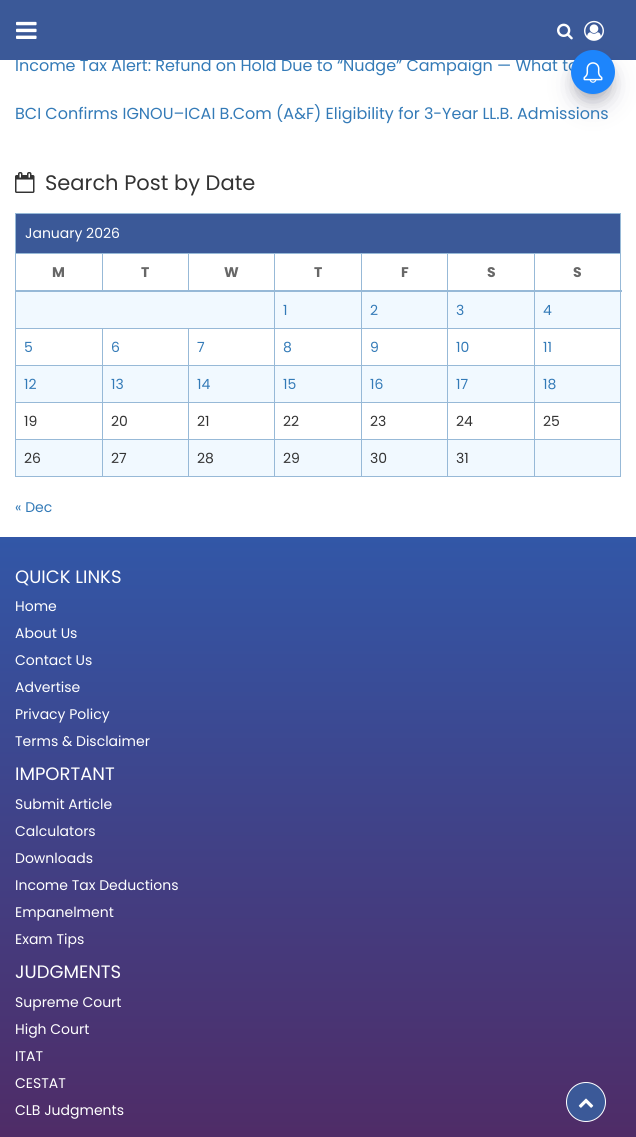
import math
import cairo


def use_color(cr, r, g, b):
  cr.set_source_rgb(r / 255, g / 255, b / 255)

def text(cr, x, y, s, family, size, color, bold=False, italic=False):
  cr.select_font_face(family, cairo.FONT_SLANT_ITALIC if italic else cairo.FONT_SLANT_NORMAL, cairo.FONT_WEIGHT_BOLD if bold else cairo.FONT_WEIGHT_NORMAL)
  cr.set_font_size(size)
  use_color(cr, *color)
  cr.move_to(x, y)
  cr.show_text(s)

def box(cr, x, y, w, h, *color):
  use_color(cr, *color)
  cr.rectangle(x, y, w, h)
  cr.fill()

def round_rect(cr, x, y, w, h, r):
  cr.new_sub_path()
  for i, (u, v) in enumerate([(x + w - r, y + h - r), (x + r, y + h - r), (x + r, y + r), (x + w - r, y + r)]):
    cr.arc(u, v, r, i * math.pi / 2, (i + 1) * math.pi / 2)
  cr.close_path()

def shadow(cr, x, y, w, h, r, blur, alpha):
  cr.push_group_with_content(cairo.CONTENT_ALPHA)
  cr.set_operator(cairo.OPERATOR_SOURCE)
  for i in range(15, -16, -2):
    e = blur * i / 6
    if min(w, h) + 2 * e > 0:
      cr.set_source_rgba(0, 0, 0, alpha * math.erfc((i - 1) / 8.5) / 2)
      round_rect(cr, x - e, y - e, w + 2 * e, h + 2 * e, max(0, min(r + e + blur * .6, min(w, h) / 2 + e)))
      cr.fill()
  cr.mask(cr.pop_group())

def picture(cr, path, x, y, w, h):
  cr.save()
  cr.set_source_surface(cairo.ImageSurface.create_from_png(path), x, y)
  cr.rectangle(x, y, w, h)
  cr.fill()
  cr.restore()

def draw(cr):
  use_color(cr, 255, 255, 255)
  cr.paint()
  picture(cr, "img_05.png", 15, 172, 20, 21)
  box(cr, 15, 213, 606, 1, 151, 185, 215)
  box(cr, 620, 213, 1, 264, 151, 185, 215)
  box(cr, 15, 476, 606, 1, 151, 185, 215)
  box(cr, 15, 213, 1, 264, 151, 185, 215)
  box(cr, 16, 214, 604, 39, 59, 89, 152)
  box(cr, 534, 253, 87, 1, 151, 185, 215)
  box(cr, 16, 292, 604, 36, 241, 249, 255)
  box(cr, 534, 328, 87, 1, 151, 185, 215)
  box(cr, 534, 365, 87, 1, 151, 185, 215)
  box(cr, 16, 366, 604, 36, 241, 249, 255)
  box(cr, 534, 402, 87, 1, 151, 185, 215)
  box(cr, 534, 439, 87, 1, 151, 185, 215)
  box(cr, 16, 440, 604, 36, 241, 249, 255)
  box(cr, 534, 439, 1, 38, 151, 185, 215)
  box(cr, 447, 439, 88, 1, 151, 185, 215)
  box(cr, 534, 402, 1, 38, 151, 185, 215)
  box(cr, 447, 402, 88, 1, 151, 185, 215)
  box(cr, 534, 365, 1, 38, 151, 185, 215)
  box(cr, 447, 365, 88, 1, 151, 185, 215)
  box(cr, 534, 328, 1, 38, 151, 185, 215)
  box(cr, 447, 328, 88, 1, 151, 185, 215)
  box(cr, 534, 290, 1, 39, 151, 185, 215)
  box(cr, 534, 253, 1, 38, 151, 185, 215)
  box(cr, 447, 253, 88, 1, 151, 185, 215)
  box(cr, 447, 439, 1, 38, 151, 185, 215)
  box(cr, 361, 439, 87, 1, 151, 185, 215)
  box(cr, 447, 402, 1, 38, 151, 185, 215)
  box(cr, 361, 402, 87, 1, 151, 185, 215)
  box(cr, 447, 365, 1, 38, 151, 185, 215)
  box(cr, 361, 365, 87, 1, 151, 185, 215)
  box(cr, 447, 328, 1, 38, 151, 185, 215)
  box(cr, 361, 328, 87, 1, 151, 185, 215)
  box(cr, 447, 290, 1, 39, 151, 185, 215)
  box(cr, 447, 253, 1, 38, 151, 185, 215)
  box(cr, 361, 253, 87, 1, 151, 185, 215)
  box(cr, 361, 439, 1, 38, 151, 185, 215)
  box(cr, 274, 439, 88, 1, 151, 185, 215)
  box(cr, 361, 402, 1, 38, 151, 185, 215)
  box(cr, 274, 402, 88, 1, 151, 185, 215)
  box(cr, 361, 365, 1, 38, 151, 185, 215)
  box(cr, 274, 365, 88, 1, 151, 185, 215)
  box(cr, 361, 328, 1, 38, 151, 185, 215)
  box(cr, 274, 328, 88, 1, 151, 185, 215)
  box(cr, 361, 290, 1, 39, 151, 185, 215)
  box(cr, 361, 253, 1, 38, 151, 185, 215)
  box(cr, 274, 253, 88, 1, 151, 185, 215)
  box(cr, 274, 439, 1, 38, 151, 185, 215)
  box(cr, 188, 439, 87, 1, 151, 185, 215)
  box(cr, 274, 402, 1, 38, 151, 185, 215)
  box(cr, 188, 402, 87, 1, 151, 185, 215)
  box(cr, 274, 365, 1, 38, 151, 185, 215)
  box(cr, 188, 365, 87, 1, 151, 185, 215)
  box(cr, 274, 328, 1, 38, 151, 185, 215)
  box(cr, 188, 328, 87, 1, 151, 185, 215)
  box(cr, 274, 290, 1, 39, 151, 185, 215)
  box(cr, 274, 253, 1, 38, 151, 185, 215)
  box(cr, 188, 253, 87, 1, 151, 185, 215)
  box(cr, 188, 253, 1, 38, 151, 185, 215)
  box(cr, 102, 253, 87, 1, 151, 185, 215)
  box(cr, 102, 253, 1, 38, 151, 185, 215)
  box(cr, 15, 253, 88, 1, 151, 185, 215)
  box(cr, 15, 290, 607, 2, 151, 185, 215)
  box(cr, 188, 439, 1, 38, 151, 185, 215)
  box(cr, 102, 439, 87, 1, 151, 185, 215)
  box(cr, 188, 402, 1, 38, 151, 185, 215)
  box(cr, 102, 402, 87, 1, 151, 185, 215)
  box(cr, 188, 365, 1, 38, 151, 185, 215)
  box(cr, 102, 365, 87, 1, 151, 185, 215)
  box(cr, 188, 328, 1, 38, 151, 185, 215)
  box(cr, 102, 328, 87, 1, 151, 185, 215)
  box(cr, 102, 439, 1, 38, 151, 185, 215)
  box(cr, 15, 439, 88, 1, 151, 185, 215)
  box(cr, 102, 402, 1, 38, 151, 185, 215)
  box(cr, 15, 402, 88, 1, 151, 185, 215)
  box(cr, 102, 365, 1, 38, 151, 185, 215)
  box(cr, 15, 365, 88, 1, 151, 185, 215)
  box(cr, 102, 328, 1, 38, 151, 185, 215)
  box(cr, 15, 328, 88, 1, 151, 185, 215)
  gradient = cairo.LinearGradient(318, 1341, 318, 537)
  gradient.add_color_stop_rgba(0, 0.349, 0.114, 0.318, 1)
  gradient.add_color_stop_rgba(1, 0.196, 0.341, 0.655, 1)
  cr.set_source(gradient)
  cr.rectangle(0, 537, 636, 600)
  cr.fill()
  use_color(cr, 59, 89, 152)
  cr.arc(586, 1102, 19.5, 0, 2 * math.pi)
  cr.fill_preserve()
  use_color(cr, 255, 255, 255)
  cr.set_line_width(1)
  cr.stroke()
  picture(cr, "img_06.png", 578, 1098, 16, 10)
  text(cr, 15, 71, "Income Tax Alert: Refund on Hold Due to “Nudge” Campaign — What to", "Poppins", 16, (51, 122, 183))
  box(cr, 0, 0, 636, 60, 59, 89, 152)
  picture(cr, "img_03.png", 584, 20, 20, 21)
  picture(cr, "img_02.png", 557, 23, 16, 17)
  use_color(cr, 50, 50, 93)
  shadow(cr, 576, 68, 34, 34, 17, 13.5, 0.25)
  use_color(cr, 0, 0, 0)
  shadow(cr, 579, 66, 28, 28, 14, 8, 0.3)
  use_color(cr, 29, 133, 252)
  cr.arc(593, 72, 22, 0, 2 * math.pi)
  cr.fill()
  picture(cr, "img_04.png", 583, 62, 20, 21)
  picture(cr, "img_01.png", 16, 21, 21, 18)
  text(cr, 15, 119, "BCI Confirms IGNOU–ICAI B.Com (A&F) Eligibility for 3-Year LL.B. Admissions", "Poppins", 16, (51, 122, 183))
  text(cr, 45, 190, "Search Post by Date", "Poppins", 21, (51, 51, 51))
  text(cr, 25, 238, "January 2026", "Poppins", 14, (255, 255, 255))
  text(cr, 52, 277, "M", "Poppins", 14, (103, 103, 103), bold=True)
  text(cr, 141, 277, "T", "Poppins", 14, (103, 103, 103), bold=True)
  text(cr, 224, 277, "W", "Poppins", 14, (103, 103, 103), bold=True)
  text(cr, 314, 277, "T", "Poppins", 14, (103, 103, 103), bold=True)
  text(cr, 401, 277, "F", "Poppins", 14, (103, 103, 103), bold=True)
  text(cr, 487, 277, "S", "Poppins", 14, (103, 103, 103), bold=True)
  text(cr, 573, 277, "S", "Poppins", 14, (103, 103, 103), bold=True)
  text(cr, 283, 315, "1", "Poppins", 14, (51, 122, 183))
  text(cr, 370, 315, "2", "Poppins", 14, (51, 122, 183))
  text(cr, 456, 315, "3", "Poppins", 14, (51, 122, 183))
  text(cr, 543, 315, "4", "Poppins", 14, (51, 122, 183))
  text(cr, 24, 352, "5", "Poppins", 14, (51, 122, 183))
  text(cr, 111, 352, "6", "Poppins", 14, (51, 122, 183))
  text(cr, 197, 352, "7", "Poppins", 14, (51, 122, 183))
  text(cr, 283, 352, "8", "Poppins", 14, (51, 122, 183))
  text(cr, 370, 352, "9", "Poppins", 14, (51, 122, 183))
  text(cr, 456, 352, "10", "Poppins", 14, (51, 122, 183))
  text(cr, 543, 352, "11", "Poppins", 14, (51, 122, 183))
  text(cr, 24, 389, "12", "Poppins", 14, (51, 122, 183))
  text(cr, 111, 389, "13", "Poppins", 14, (51, 122, 183))
  text(cr, 197, 389, "14", "Poppins", 14, (51, 122, 183))
  text(cr, 283, 389, "15", "Poppins", 14, (51, 122, 183))
  text(cr, 370, 389, "16", "Poppins", 14, (51, 122, 183))
  text(cr, 456, 389, "17", "Poppins", 14, (51, 122, 183))
  text(cr, 543, 389, "18", "Poppins", 14, (51, 122, 183))
  text(cr, 24, 426, "19", "Poppins", 14, (51, 51, 51))
  text(cr, 111, 426, "20", "Poppins", 14, (51, 51, 51))
  text(cr, 197, 426, "21", "Poppins", 14, (51, 51, 51))
  text(cr, 283, 426, "22", "Poppins", 14, (51, 51, 51))
  text(cr, 370, 426, "23", "Poppins", 14, (51, 51, 51))
  text(cr, 456, 426, "24", "Poppins", 14, (51, 51, 51))
  text(cr, 543, 426, "25", "Poppins", 14, (51, 51, 51))
  text(cr, 24, 463, "26", "Poppins", 14, (51, 51, 51))
  text(cr, 111, 463, "27", "Poppins", 14, (51, 51, 51))
  text(cr, 197, 463, "28", "Poppins", 14, (51, 51, 51))
  text(cr, 283, 463, "29", "Poppins", 14, (51, 51, 51))
  text(cr, 370, 463, "30", "Poppins", 14, (51, 51, 51))
  text(cr, 456, 463, "31", "Poppins", 14, (51, 51, 51))
  text(cr, 15, 512, "« Dec", "Poppins", 14, (51, 122, 183))
  text(cr, 15, 583, "QUICK LINKS", "Poppins", 18, (255, 255, 255))
  text(cr, 15, 611, "Home", "Poppins", 14, (255, 255, 255))
  text(cr, 15, 638, "About Us", "Poppins", 14, (255, 255, 255))
  text(cr, 15, 665, "Contact Us", "Poppins", 14, (255, 255, 255))
  text(cr, 15, 692, "Advertise", "Poppins", 14, (255, 255, 255))
  text(cr, 15, 719, "Privacy Policy", "Poppins", 14, (255, 255, 255))
  text(cr, 15, 746, "Terms & Disclaimer", "Poppins", 14, (255, 255, 255))
  text(cr, 15, 780, "IMPORTANT", "Poppins", 18, (255, 255, 255))
  text(cr, 15, 809, "Submit Article", "Poppins", 14, (255, 255, 255))
  text(cr, 15, 836, "Calculators", "Poppins", 14, (255, 255, 255))
  text(cr, 15, 863, "Downloads", "Poppins", 14, (255, 255, 255))
  text(cr, 15, 890, "Income Tax Deductions", "Poppins", 14, (255, 255, 255))
  text(cr, 15, 917, "Empanelment", "Poppins", 14, (255, 255, 255))
  text(cr, 15, 944, "Exam Tips", "Poppins", 14, (255, 255, 255))
  text(cr, 15, 978, "JUDGMENTS", "Poppins", 18, (255, 255, 255))
  text(cr, 15, 1007, "Supreme Court", "Poppins", 14, (255, 255, 255))
  text(cr, 15, 1034, "High Court", "Poppins", 14, (255, 255, 255))
  text(cr, 15, 1061, "ITAT", "Poppins", 14, (255, 255, 255))
  text(cr, 15, 1088, "CESTAT", "Poppins", 14, (255, 255, 255))
  text(cr, 15, 1115, "CLB Judgments", "Poppins", 14, (255, 255, 255))


surface = cairo.ImageSurface(cairo.FORMAT_RGB24, 636, 1137)
cr = cairo.Context(surface)
options = cairo.FontOptions()
options.set_hint_metrics(cairo.HINT_METRICS_OFF)
options.set_hint_style(cairo.HINT_STYLE_NONE)
cr.set_font_options(options)
cr.set_miter_limit(4)
draw(cr)
surface.write_to_png("out.png")
